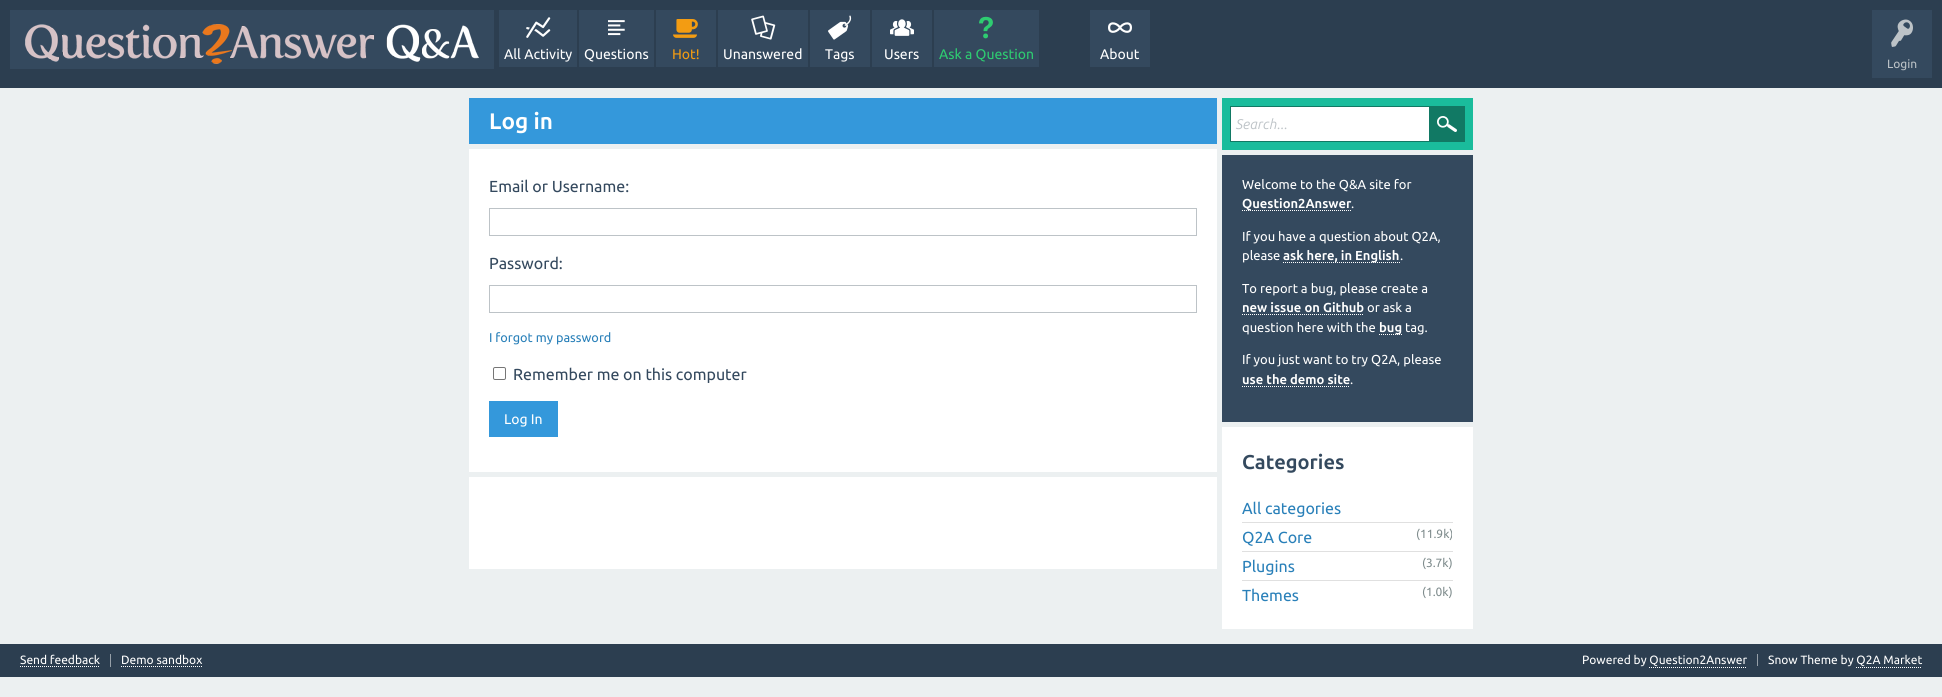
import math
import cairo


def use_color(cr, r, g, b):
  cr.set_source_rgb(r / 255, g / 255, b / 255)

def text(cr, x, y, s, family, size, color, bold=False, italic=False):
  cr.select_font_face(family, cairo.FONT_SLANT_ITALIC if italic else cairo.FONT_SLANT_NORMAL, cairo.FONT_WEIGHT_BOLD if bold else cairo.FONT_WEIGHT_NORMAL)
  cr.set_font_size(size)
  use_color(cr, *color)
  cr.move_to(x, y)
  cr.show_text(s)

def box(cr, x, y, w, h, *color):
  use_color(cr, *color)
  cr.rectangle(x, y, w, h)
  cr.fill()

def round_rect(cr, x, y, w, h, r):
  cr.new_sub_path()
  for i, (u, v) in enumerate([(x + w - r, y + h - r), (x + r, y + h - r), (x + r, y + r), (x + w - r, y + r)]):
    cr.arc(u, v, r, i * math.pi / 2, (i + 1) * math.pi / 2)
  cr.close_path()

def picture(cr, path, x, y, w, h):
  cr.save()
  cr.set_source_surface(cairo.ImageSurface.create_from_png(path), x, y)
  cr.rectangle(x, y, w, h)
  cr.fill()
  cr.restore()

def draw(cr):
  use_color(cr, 236, 240, 241)
  cr.paint()
  box(cr, 0, 0, 1942, 88, 44, 62, 80)
  box(cr, 10, 10, 484, 59, 52, 73, 94)
  picture(cr, "img_01.png", 25, 24, 454, 40)
  box(cr, 499, 10, 78, 57, 52, 73, 94)
  picture(cr, "img_02.png", 526, 17, 25, 21)
  box(cr, 579, 10, 75, 57, 52, 73, 94)
  picture(cr, "img_03.png", 608, 20, 17, 16)
  box(cr, 656, 10, 60, 57, 52, 73, 94)
  picture(cr, "img_04.png", 673, 19, 25, 19)
  box(cr, 718, 10, 90, 57, 52, 73, 94)
  picture(cr, "img_05.png", 751, 15, 25, 25)
  box(cr, 810, 10, 60, 57, 52, 73, 94)
  picture(cr, "img_06.png", 828, 15, 24, 25)
  box(cr, 872, 10, 60, 57, 52, 73, 94)
  picture(cr, "img_07.png", 890, 19, 24, 17)
  box(cr, 934, 10, 105, 57, 52, 73, 94)
  picture(cr, "img_08.png", 979, 16, 14, 23)
  box(cr, 1090, 10, 60, 57, 52, 73, 94)
  picture(cr, "img_09.png", 1108, 22, 24, 11)
  box(cr, 1872, 10, 60, 68, 52, 73, 94)
  picture(cr, "img_10.png", 1891, 19, 22, 28)
  box(cr, 469, 98, 748, 46, 52, 152, 219)
  box(cr, 469, 149, 748, 323, 255, 255, 255)
  cr.rectangle(489.5, 208.5, 707, 27)
  use_color(cr, 189, 195, 199)
  cr.set_line_width(1)
  cr.stroke()
  cr.rectangle(489.5, 285.5, 707, 27)
  cr.stroke()
  round_rect(cr, 493.5, 367.5, 12, 12, 1.5)
  use_color(cr, 118, 118, 118)
  cr.stroke()
  box(cr, 489, 401, 69, 36, 52, 152, 219)
  box(cr, 469, 477, 748, 92, 255, 255, 255)
  box(cr, 1222, 98, 251, 52, 26, 188, 156)
  box(cr, 1231, 107, 198, 34, 255, 255, 255)
  cr.rectangle(1230.5, 106.5, 234, 35)
  use_color(cr, 17, 121, 100)
  cr.stroke()
  box(cr, 1429, 107, 35, 34, 17, 121, 100)
  picture(cr, "img_11.png", 1437, 116, 20, 16)
  box(cr, 1222, 155, 251, 267, 52, 73, 94)
  cr.new_path()
  cr.move_to(1242, 210.5)
  cr.line_to(1351, 210.5)
  use_color(cr, 255, 255, 255)
  cr.set_dash([1, 1])
  cr.stroke()
  cr.new_path()
  cr.move_to(1283, 262.5)
  cr.line_to(1400, 262.5)
  cr.stroke()
  cr.new_path()
  cr.move_to(1242, 314.5)
  cr.line_to(1364, 314.5)
  cr.stroke()
  cr.new_path()
  cr.move_to(1379, 334.5)
  cr.line_to(1402, 334.5)
  cr.stroke()
  cr.new_path()
  cr.move_to(1242, 386.5)
  cr.line_to(1350, 386.5)
  cr.stroke()
  box(cr, 1222, 427, 251, 202, 255, 255, 255)
  box(cr, 1242, 522, 211, 1, 224, 224, 224)
  box(cr, 1242, 551, 211, 1, 224, 224, 224)
  box(cr, 1242, 580, 211, 1, 224, 224, 224)
  box(cr, 0, 644, 1942, 33, 44, 62, 80)
  box(cr, 110, 654, 1, 13, 150, 159, 168)
  cr.new_path()
  cr.move_to(20, 666.5)
  cr.line_to(100, 666.5)
  use_color(cr, 255, 255, 255)
  cr.stroke()
  cr.new_path()
  cr.move_to(121, 666.5)
  cr.line_to(202, 666.5)
  cr.stroke()
  box(cr, 1757, 654, 1, 12, 150, 159, 168)
  cr.new_path()
  cr.move_to(1649, 667.5)
  cr.line_to(1747, 667.5)
  use_color(cr, 255, 255, 255)
  cr.stroke()
  cr.new_path()
  cr.move_to(1856, 667.5)
  cr.line_to(1922, 667.5)
  cr.stroke()
  text(cr, 504, 59, "All Activity", "Ubuntu", 14, (255, 255, 255))
  text(cr, 584, 59, "Questions", "Ubuntu", 14, (255, 255, 255))
  text(cr, 672, 59, "Hot!", "Ubuntu", 14, (243, 156, 18))
  text(cr, 723, 59, "Unanswered", "Ubuntu", 14, (255, 255, 255))
  text(cr, 825, 59, "Tags", "Ubuntu", 14, (255, 255, 255))
  text(cr, 884, 59, "Users", "Ubuntu", 14, (255, 255, 255))
  text(cr, 939, 59, "Ask a Question", "Ubuntu", 14, (46, 204, 113))
  text(cr, 1100, 59, "About", "Ubuntu", 14, (255, 255, 255))
  text(cr, 1887, 68, "Login", "Ubuntu", 12, (189, 195, 199))
  text(cr, 489, 129, "Log in", "Ubuntu", 22.5, (255, 255, 255), bold=True)
  text(cr, 489, 192, "Email or Username:", "Ubuntu", 16, (52, 73, 94))
  text(cr, 489, 269, "Password:", "Ubuntu", 16, (52, 73, 94))
  text(cr, 489, 342, "I forgot my password", "Ubuntu", 12.75, (41, 128, 185))
  text(cr, 513, 380, "Remember me on this computer", "Ubuntu", 16, (52, 73, 94))
  text(cr, 504, 424, "Log In", "Ubuntu", 14, (255, 255, 255))
  text(cr, 1236, 129, "Search...", "Ubuntu", 14, (189, 195, 199), italic=True)
  text(cr, 1242, 189, "Welcome to the Q&A site for", "Ubuntu", 13, (255, 255, 255))
  text(cr, 1242, 208, "Question2Answer", "Ubuntu", 13, (255, 255, 255), bold=True)
  text(cr, 1351, 208, ".", "Ubuntu", 13, (255, 255, 255))
  text(cr, 1242, 241, "If you have a question about Q2A,", "Ubuntu", 13, (255, 255, 255))
  text(cr, 1242, 260, "please", "Ubuntu", 13, (255, 255, 255))
  text(cr, 1283, 260, "ask here, in English", "Ubuntu", 13, (255, 255, 255), bold=True)
  text(cr, 1400, 260, ".", "Ubuntu", 13, (255, 255, 255))
  text(cr, 1242, 293, "To report a bug, please create a", "Ubuntu", 13, (255, 255, 255))
  text(cr, 1242, 312, "new issue on Github", "Ubuntu", 13, (255, 255, 255), bold=True)
  text(cr, 1367, 312, "or ask a", "Ubuntu", 13, (255, 255, 255))
  text(cr, 1242, 332, "question here with the", "Ubuntu", 13, (255, 255, 255))
  text(cr, 1379, 332, "bug", "Ubuntu", 13, (255, 255, 255), bold=True)
  text(cr, 1405, 332, "tag.", "Ubuntu", 13, (255, 255, 255))
  text(cr, 1242, 364, "If you just want to try Q2A, please", "Ubuntu", 13, (255, 255, 255))
  text(cr, 1242, 384, "use the demo site", "Ubuntu", 13, (255, 255, 255), bold=True)
  text(cr, 1350, 384, ".", "Ubuntu", 13, (255, 255, 255))
  text(cr, 1242, 469, "Categories", "Ubuntu", 20, (52, 73, 94), bold=True)
  text(cr, 1242, 514, "All categories", "Ubuntu", 16, (41, 128, 185))
  text(cr, 1242, 543, "Q2A Core", "Ubuntu", 16, (41, 128, 185))
  text(cr, 1416, 538, "(11.9k)", "Ubuntu", 12, (127, 140, 141))
  text(cr, 1242, 572, "Plugins", "Ubuntu", 16, (41, 128, 185))
  text(cr, 1422, 567, "(3.7k)", "Ubuntu", 12, (127, 140, 141))
  text(cr, 1242, 601, "Themes", "Ubuntu", 16, (41, 128, 185))
  text(cr, 1422, 596, "(1.0k)", "Ubuntu", 12, (127, 140, 141))
  text(cr, 20, 664, "Send feedback", "Ubuntu", 12, (255, 255, 255))
  text(cr, 121, 664, "Demo sandbox", "Ubuntu", 12, (255, 255, 255))
  text(cr, 1582, 664, "Powered by Question2Answer", "Ubuntu", 12, (255, 255, 255))
  text(cr, 1768, 664, "Snow Theme by Q2A Market", "Ubuntu", 12, (255, 255, 255))


surface = cairo.ImageSurface(cairo.FORMAT_RGB24, 1942, 697)
cr = cairo.Context(surface)
options = cairo.FontOptions()
options.set_hint_metrics(cairo.HINT_METRICS_OFF)
options.set_hint_style(cairo.HINT_STYLE_NONE)
cr.set_font_options(options)
cr.set_miter_limit(4)
draw(cr)
surface.write_to_png("out.png")
